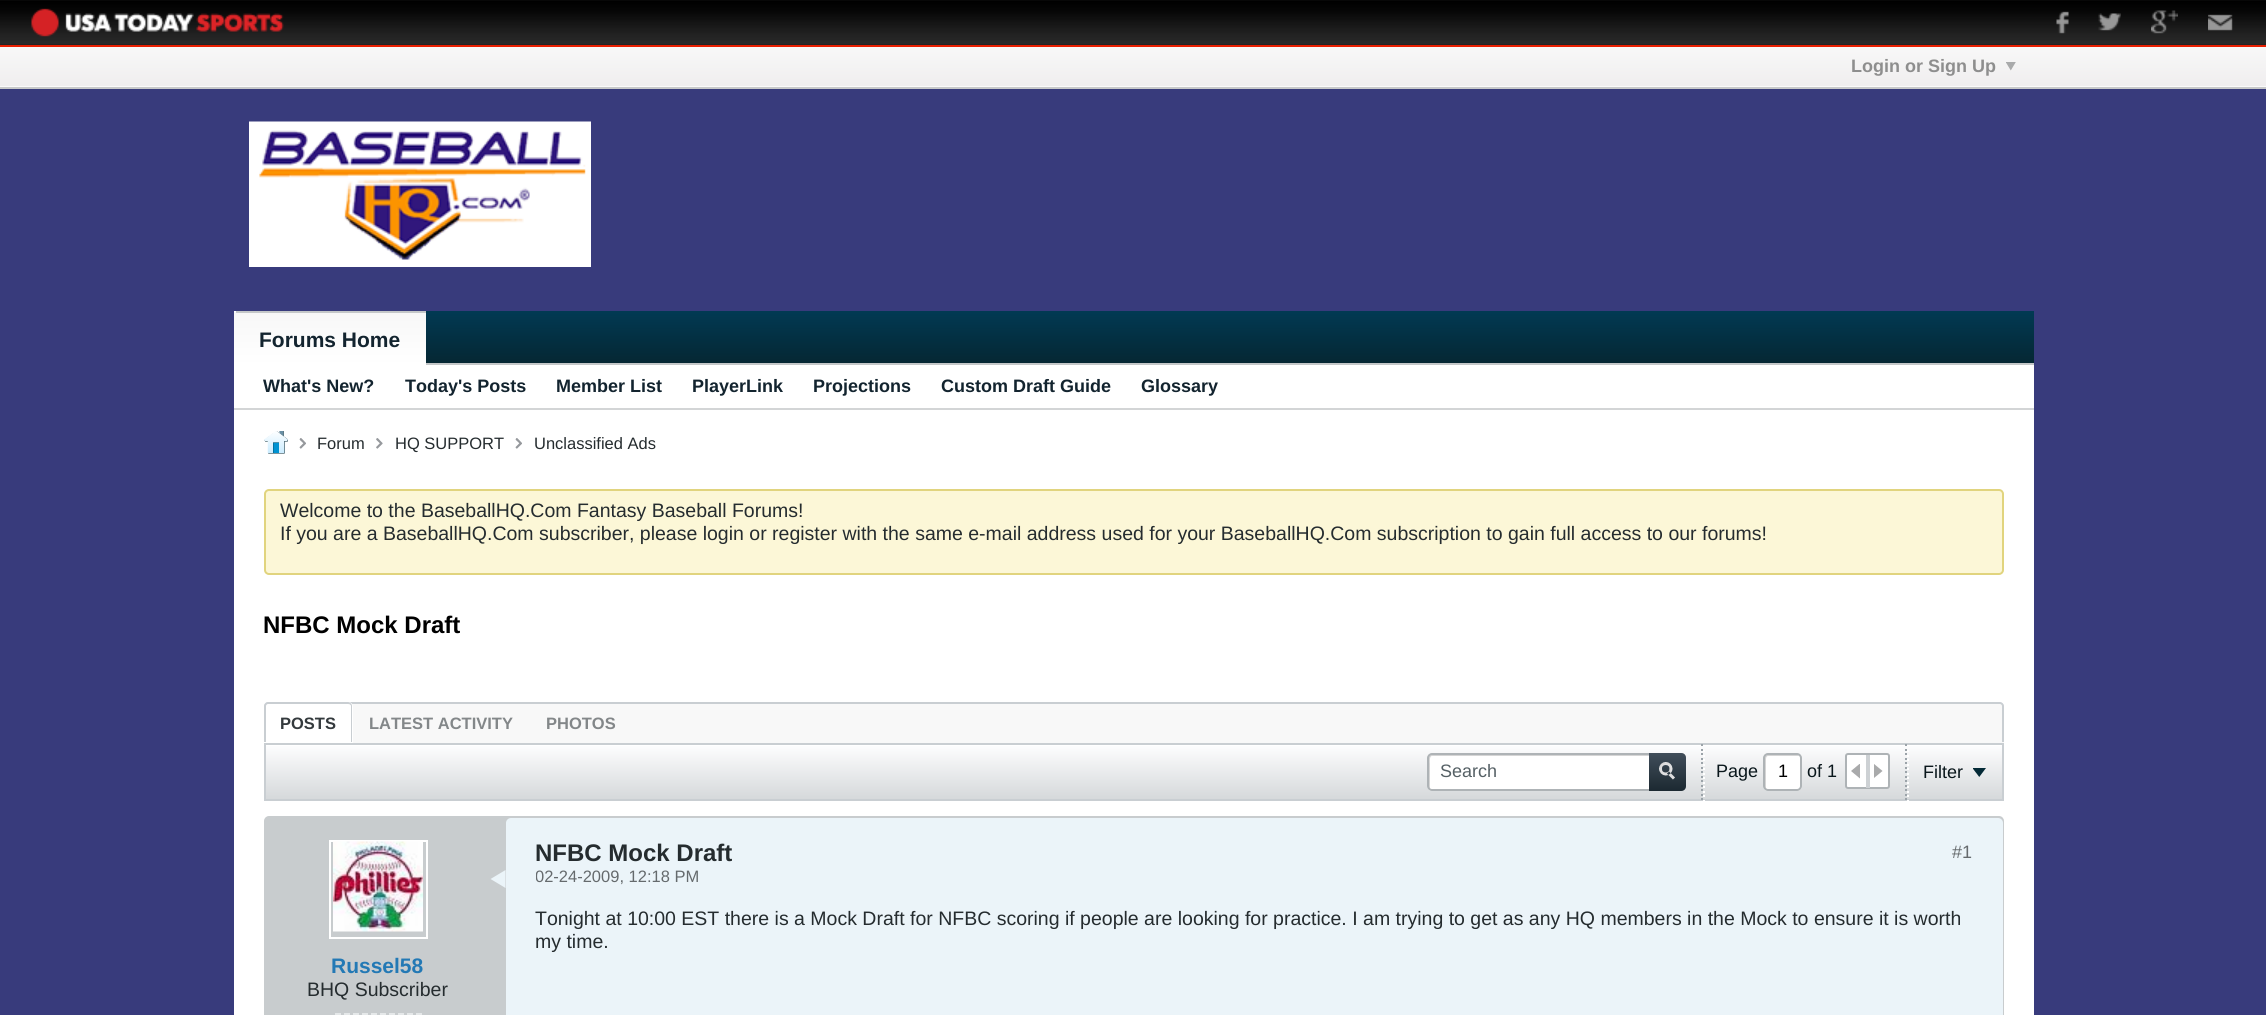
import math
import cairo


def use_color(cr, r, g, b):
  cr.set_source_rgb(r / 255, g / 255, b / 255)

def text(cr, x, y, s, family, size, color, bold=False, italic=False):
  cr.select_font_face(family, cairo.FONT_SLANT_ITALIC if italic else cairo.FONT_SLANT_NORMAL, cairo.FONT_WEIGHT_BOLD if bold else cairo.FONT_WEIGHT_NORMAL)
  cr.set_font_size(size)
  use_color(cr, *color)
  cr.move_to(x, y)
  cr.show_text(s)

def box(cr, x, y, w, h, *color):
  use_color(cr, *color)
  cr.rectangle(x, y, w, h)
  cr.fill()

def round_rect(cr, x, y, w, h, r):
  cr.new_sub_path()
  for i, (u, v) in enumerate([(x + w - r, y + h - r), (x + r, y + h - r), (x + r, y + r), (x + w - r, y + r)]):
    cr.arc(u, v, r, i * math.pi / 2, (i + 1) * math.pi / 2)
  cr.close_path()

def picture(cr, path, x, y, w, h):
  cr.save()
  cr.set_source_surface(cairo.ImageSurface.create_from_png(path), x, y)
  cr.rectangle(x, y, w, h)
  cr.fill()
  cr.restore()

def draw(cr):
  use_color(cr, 56, 59, 124)
  cr.paint()
  picture(cr, "img_01.png", 0, 0, 2266, 45)
  box(cr, 0, 45, 2266, 2, 233, 31, 1)
  picture(cr, "img_02.png", 31, 8, 253, 29)
  picture(cr, "img_03.png", 2056, 11, 13, 23)
  picture(cr, "img_04.png", 2098, 13, 23, 18)
  picture(cr, "img_05.png", 2151, 10, 27, 24)
  picture(cr, "img_06.png", 2208, 14, 25, 17)
  gradient = cairo.LinearGradient(1133, 46, 1133, 89)
  gradient.add_color_stop_rgba(0, 0.973, 0.973, 0.973, 1)
  gradient.add_color_stop_rgba(1, 0.937, 0.929, 0.933, 1)
  cr.set_source(gradient)
  cr.rectangle(0, 47, 2266, 39)
  cr.fill()
  picture(cr, "img_07.png", 2006, 62, 10, 9)
  box(cr, 0, 86, 2266, 1, 250, 250, 250)
  box(cr, 0, 87, 2266, 2, 199, 200, 201)
  picture(cr, "img_08.png", 249, 121, 342, 146)
  gradient = cairo.LinearGradient(1134, 310, 1134, 363)
  gradient.add_color_stop_rgba(0, 0.004, 0.227, 0.329, 1)
  gradient.add_color_stop_rgba(1, 0.02, 0.153, 0.2, 1)
  cr.set_source(gradient)
  cr.rectangle(234, 311, 1800, 52)
  cr.fill()
  box(cr, 426, 363, 1608, 2, 196, 199, 200)
  gradient = cairo.LinearGradient(330, 260, 330, 312)
  gradient.add_color_stop_rgba(0, 0.969, 0.969, 0.969, 1)
  gradient.add_color_stop_rgba(1, 1, 1, 1, 1)
  cr.set_source(gradient)
  cr.rectangle(234, 311, 2, 1)
  cr.fill()
  gradient = cairo.LinearGradient(330, 312, 330, 365)
  gradient.add_color_stop_rgba(0, 0.969, 0.969, 0.969, 1)
  gradient.add_color_stop_rgba(1, 1, 1, 1, 1)
  cr.set_source(gradient)
  cr.rectangle(234, 312, 192, 53)
  cr.fill()
  box(cr, 236, 311, 190, 2, 196, 199, 200)
  box(cr, 234, 365, 1800, 43, 255, 255, 255)
  box(cr, 234, 408, 1800, 2, 211, 213, 214)
  box(cr, 234, 410, 1800, 605, 255, 255, 255)
  picture(cr, "img_09.png", 264, 431, 24, 23)
  picture(cr, "img_10.png", 299, 438, 7, 11)
  picture(cr, "img_11.png", 376, 438, 7, 11)
  picture(cr, "img_10.png", 515, 438, 7, 11)
  use_color(cr, 252, 247, 215)
  round_rect(cr, 265, 490, 1738, 84, 4)
  cr.fill_preserve()
  use_color(cr, 225, 212, 126)
  cr.stroke()
  use_color(cr, 248, 248, 248)
  cr.new_path()
  cr.move_to(269, 702)
  cr.line_to(1999, 702)
  cr.curve_to(2002, 702, 2004, 704, 2004, 707)
  cr.line_to(2004, 743)
  cr.line_to(264, 743)
  cr.line_to(264, 707)
  cr.curve_to(264, 704, 266, 702, 269, 702)
  cr.close_path()
  cr.fill()
  use_color(cr, 201, 206, 210)
  cr.set_fill_rule(cairo.FILL_RULE_EVEN_ODD)
  cr.new_path()
  cr.move_to(268, 702)
  cr.line_to(2000, 702)
  cr.curve_to(2002, 702, 2004, 704, 2004, 706)
  cr.line_to(2004, 742)
  cr.line_to(264, 742)
  cr.line_to(264, 706)
  cr.curve_to(264, 704, 266, 702, 268, 702)
  cr.close_path()
  cr.move_to(268, 704)
  cr.line_to(2000, 704)
  cr.curve_to(2001, 704, 2002, 705, 2002, 706)
  cr.line_to(2002, 742)
  cr.line_to(266, 742)
  cr.line_to(266, 706)
  cr.curve_to(266, 705, 267, 704, 268, 704)
  cr.close_path()
  cr.fill()
  use_color(cr, 255, 255, 255)
  cr.new_path()
  cr.move_to(269, 702)
  cr.line_to(348, 702)
  cr.curve_to(351, 702, 353, 704, 353, 707)
  cr.line_to(353, 743)
  cr.line_to(264, 743)
  cr.line_to(264, 707)
  cr.curve_to(264, 704, 266, 702, 269, 702)
  cr.close_path()
  cr.fill()
  use_color(cr, 201, 206, 210)
  cr.new_path()
  cr.move_to(268, 702)
  cr.line_to(348, 702)
  cr.curve_to(350, 702, 352, 704, 352, 706)
  cr.line_to(352, 742)
  cr.line_to(264, 742)
  cr.line_to(264, 706)
  cr.curve_to(264, 704, 266, 702, 268, 702)
  cr.close_path()
  cr.move_to(268, 704)
  cr.line_to(348, 704)
  cr.curve_to(350, 704, 351, 705, 351, 706)
  cr.line_to(351, 742)
  cr.line_to(266, 742)
  cr.line_to(266, 706)
  cr.curve_to(266, 705, 267, 704, 268, 704)
  cr.close_path()
  cr.fill()
  gradient = cairo.LinearGradient(1134, 744, 1134, 800)
  gradient.add_color_stop_rgba(0, 0.996, 0.996, 1, 1)
  gradient.add_color_stop_rgba(1, 0.835, 0.847, 0.855, 1)
  cr.set_source(gradient)
  cr.rectangle(266, 746, 1736, 53)
  cr.fill()
  cr.rectangle(265, 744, 1738, 56)
  use_color(cr, 201, 206, 210)
  cr.stroke()
  use_color(cr, 255, 255, 255)
  round_rect(cr, 1427, 753, 259, 38, 5)
  cr.fill()
  use_color(cr, 213, 213, 213)
  cr.set_fill_rule(cairo.FILL_RULE_WINDING)
  cr.new_path()
  cr.move_to(1432, 756)
  cr.line_to(1684, 756)
  cr.curve_to(1684, 755, 1683, 755, 1682, 755)
  cr.line_to(1431, 755)
  cr.curve_to(1429, 755, 1428, 756, 1428, 758)
  cr.line_to(1428, 786)
  cr.curve_to(1428, 787, 1429, 789, 1430, 789)
  cr.line_to(1430, 764)
  cr.curve_to(1430, 763, 1429, 756, 1432, 756)
  cr.close_path()
  cr.fill()
  round_rect(cr, 1428, 754, 257, 36, 4)
  use_color(cr, 174, 179, 182)
  cr.stroke()
  gradient = cairo.LinearGradient(1667, 753, 1667, 791)
  gradient.add_color_stop_rgba(0, 0.251, 0.302, 0.353, 1)
  gradient.add_color_stop_rgba(1, 0.11, 0.161, 0.192, 1)
  cr.set_source(gradient)
  cr.new_path()
  cr.move_to(1649, 753)
  cr.line_to(1681, 753)
  cr.curve_to(1684, 753, 1686, 755, 1686, 758)
  cr.line_to(1686, 786)
  cr.curve_to(1686, 789, 1684, 791, 1681, 791)
  cr.line_to(1649, 791)
  cr.close_path()
  cr.fill()
  picture(cr, "img_12.png", 1659, 762, 16, 18)
  picture(cr, "img_13.png", 1701, 744, 2, 56)
  picture(cr, "img_14.png", 1703, 750, 2, 51)
  use_color(cr, 255, 255, 255)
  round_rect(cr, 1763, 753, 39, 38, 5)
  cr.fill()
  use_color(cr, 213, 213, 213)
  cr.new_path()
  cr.move_to(1768, 756)
  cr.line_to(1799.5, 756)
  cr.curve_to(1799, 755.5, 1798, 755, 1797, 755)
  cr.line_to(1767, 755)
  cr.curve_to(1765.5, 755, 1764, 756.5, 1764, 758)
  cr.line_to(1764, 786)
  cr.curve_to(1764, 787.5, 1765, 788.5, 1766.5, 789)
  cr.line_to(1766, 788)
  cr.line_to(1766, 759)
  cr.curve_to(1766, 757, 1767, 756, 1768, 756)
  cr.close_path()
  cr.fill()
  round_rect(cr, 1764, 754, 37, 36, 4)
  use_color(cr, 174, 179, 182)
  cr.stroke()
  use_color(cr, 255, 255, 255)
  round_rect(cr, 1846, 754, 43, 34, 2)
  cr.fill_preserve()
  use_color(cr, 174, 179, 182)
  cr.stroke()
  box(cr, 1866, 755, 4, 33, 205, 209, 212)
  picture(cr, "img_15.png", 1851, 764, 9, 15)
  picture(cr, "img_16.png", 1874, 764, 9, 14)
  picture(cr, "img_13.png", 1905, 744, 2, 56)
  picture(cr, "img_14.png", 1907, 750, 2, 51)
  picture(cr, "img_17.png", 1973, 768, 13, 9)
  use_color(cr, 200, 204, 206)
  round_rect(cr, 265, 817, 1738, 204, 4)
  cr.fill_preserve()
  cr.stroke()
  use_color(cr, 235, 244, 249)
  round_rect(cr, 506, 818, 1497, 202, 5)
  cr.fill()
  cr.new_path()
  cr.move_to(505.5, 870)
  cr.line_to(505.5, 888)
  cr.line_to(490.5, 879)
  cr.close_path()
  cr.fill()
  cr.rectangle(330, 841, 97, 97)
  use_color(cr, 255, 255, 255)
  cr.stroke()
  picture(cr, "img_18.png", 333, 841, 90, 91)
  box(cr, 335, 1013, 6, 2, 229, 232, 233)
  box(cr, 344, 1013, 6, 2, 229, 232, 233)
  box(cr, 353, 1013, 6, 2, 229, 232, 233)
  box(cr, 362, 1013, 6, 2, 229, 232, 233)
  box(cr, 371, 1013, 6, 2, 229, 232, 233)
  box(cr, 380, 1013, 6, 2, 229, 232, 233)
  box(cr, 389, 1013, 6, 2, 229, 232, 233)
  box(cr, 398, 1013, 6, 2, 229, 232, 233)
  box(cr, 407, 1013, 6, 2, 229, 232, 233)
  box(cr, 416, 1013, 6, 2, 229, 232, 233)
  text(cr, 1851, 72, "Login or Sign Up", "Liberation Sans", 18, (142, 142, 142), bold=True)
  text(cr, 259, 347, "Forums Home", "Liberation Sans", 21, (19, 36, 47), bold=True)
  text(cr, 263, 392, "What's New?", "Liberation Sans", 18, (19, 36, 47), bold=True)
  text(cr, 405, 392, "Today's Posts", "Liberation Sans", 18, (19, 36, 47), bold=True)
  text(cr, 556, 392, "Member List", "Liberation Sans", 18, (19, 36, 47), bold=True)
  text(cr, 692, 392, "PlayerLink", "Liberation Sans", 18, (19, 36, 47), bold=True)
  text(cr, 813, 392, "Projections", "Liberation Sans", 18, (19, 36, 47), bold=True)
  text(cr, 941, 392, "Custom Draft Guide", "Liberation Sans", 18, (19, 36, 47), bold=True)
  text(cr, 1141, 392, "Glossary", "Liberation Sans", 18, (19, 36, 47), bold=True)
  text(cr, 317, 449, "Forum", "Liberation Sans", 16.5, (37, 44, 47))
  text(cr, 395, 449, "HQ SUPPORT", "Liberation Sans", 16.5, (37, 44, 47))
  text(cr, 534, 449, "Unclassified Ads", "Liberation Sans", 16.5, (37, 44, 47))
  text(cr, 280, 517, "Welcome to the BaseballHQ.Com Fantasy Baseball Forums!", "Liberation Sans", 19.5, (37, 44, 47))
  text(cr, 280, 540, "If you are a BaseballHQ.Com subscriber, please login or register with the same e-mail address used for your BaseballHQ.Com subscription to gain full access to our forums!", "Liberation Sans", 19.5, (37, 44, 47))
  text(cr, 263, 633, "NFBC Mock Draft", "Liberation Sans", 24, (0, 0, 0), bold=True)
  text(cr, 280, 729, "POSTS", "Liberation Sans", 16.5, (52, 58, 61), bold=True)
  text(cr, 369, 729, "LATEST ACTIVITY", "Liberation Sans", 16.5, (131, 135, 137), bold=True)
  text(cr, 546, 729, "PHOTOS", "Liberation Sans", 16.5, (131, 135, 137), bold=True)
  text(cr, 1440, 777, "Search", "Liberation Sans", 18, (85, 96, 101))
  text(cr, 1716, 777, "Page", "Liberation Sans", 18, (9, 22, 27))
  text(cr, 1778, 777, "1", "Liberation Sans", 18, (0, 0, 0))
  text(cr, 1807, 777, "of 1", "Liberation Sans", 18, (9, 22, 27))
  text(cr, 1923, 778, "Filter", "Liberation Sans", 18, (9, 22, 27))
  text(cr, 535, 861, "NFBC Mock Draft", "Liberation Sans", 24, (37, 44, 47), bold=True)
  cr.save()
  cr.rectangle(536, 840, 1416, 45)
  cr.clip()
  text(cr, 535, 882, "02-24-2009, 12:18 PM", "Liberation Sans", 16.5, (101, 106, 109))
  cr.restore()
  text(cr, 1952, 858, "#1", "Liberation Sans", 18, (101, 106, 109))
  text(cr, 535, 925, "Tonight at 10:00 EST there is a Mock Draft for NFBC scoring if people are looking for practice. I am trying to get as any HQ members in the Mock to ensure it is worth", "Liberation Sans", 19.5, (37, 44, 47))
  text(cr, 535, 948, "my time.", "Liberation Sans", 19.5, (37, 44, 47))
  text(cr, 331, 973, "Russel58", "Liberation Sans", 21, (35, 121, 181), bold=True)
  text(cr, 307, 996, "BHQ Subscriber", "Liberation Sans", 19.5, (37, 44, 47))


surface = cairo.ImageSurface(cairo.FORMAT_RGB24, 2266, 1015)
cr = cairo.Context(surface)
options = cairo.FontOptions()
options.set_hint_metrics(cairo.HINT_METRICS_OFF)
options.set_hint_style(cairo.HINT_STYLE_NONE)
cr.set_font_options(options)
cr.set_miter_limit(4)
draw(cr)
surface.write_to_png("out.png")
